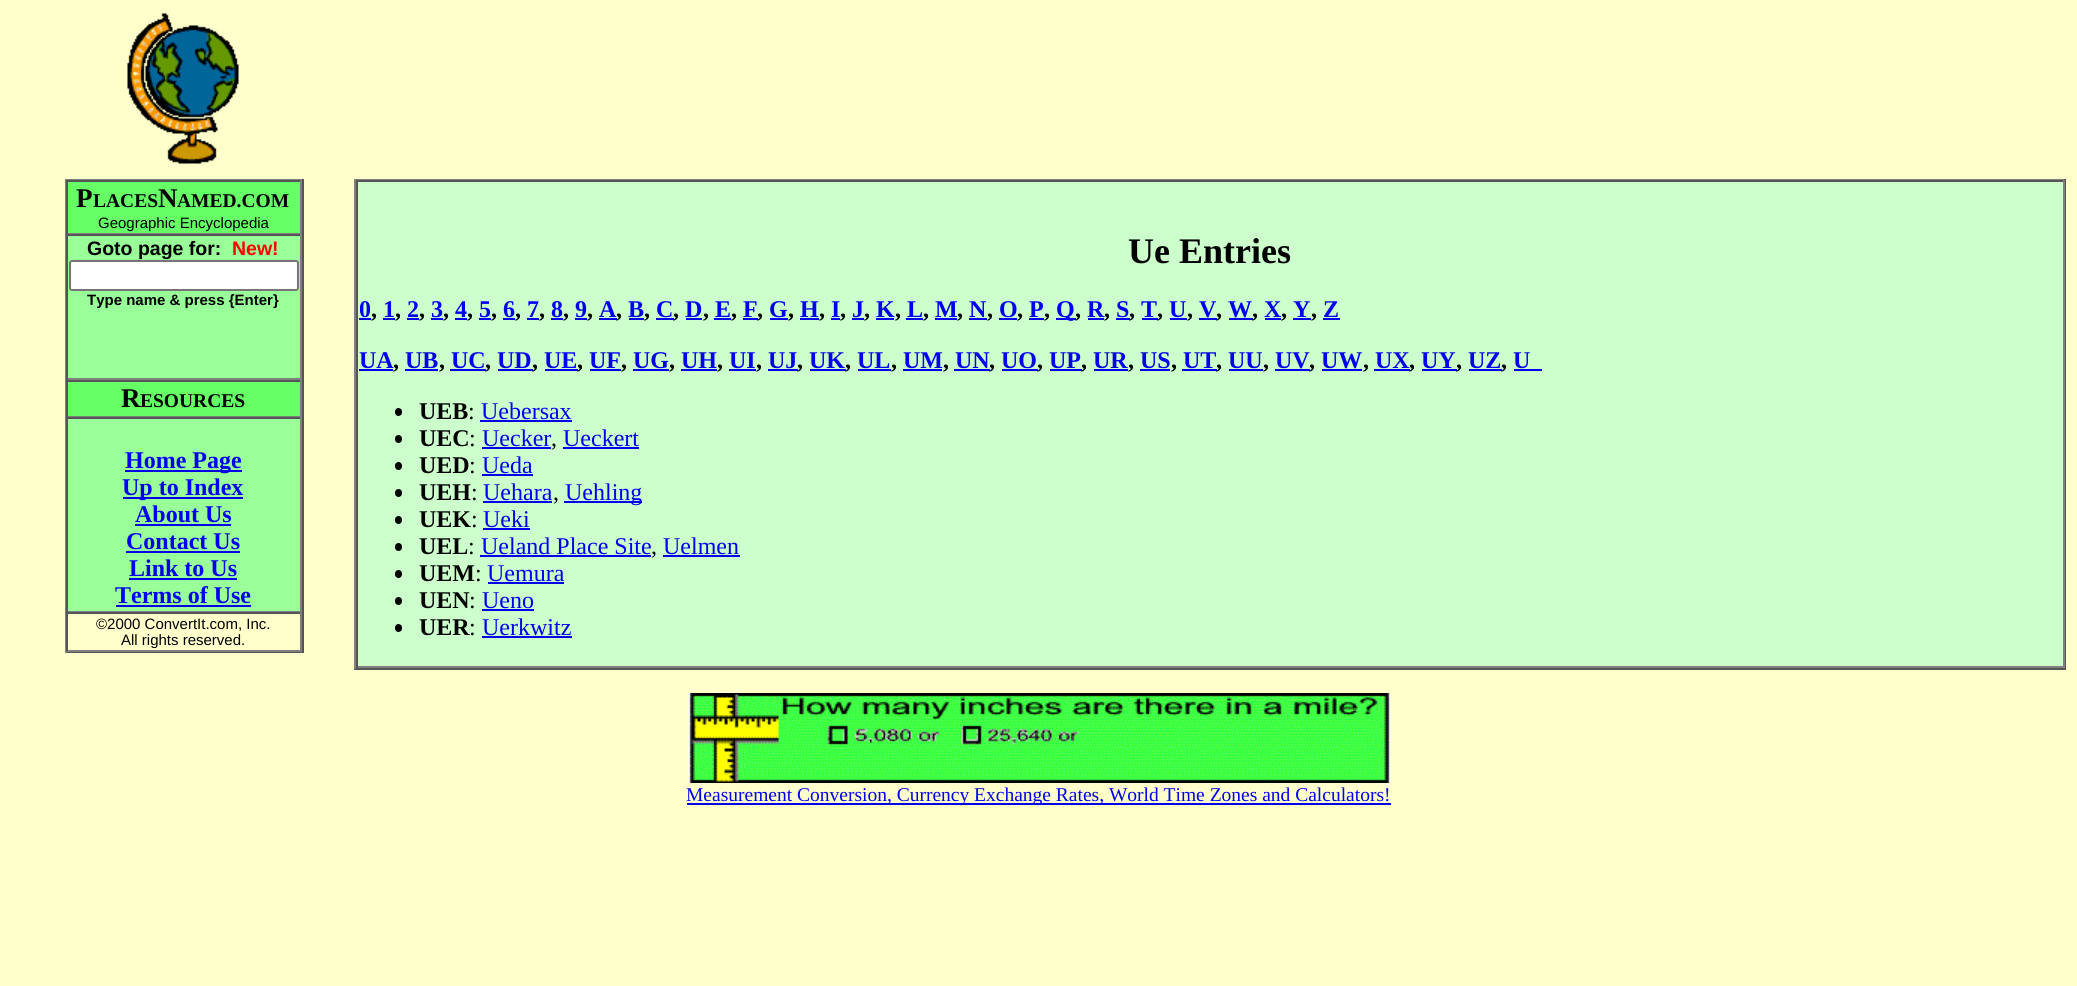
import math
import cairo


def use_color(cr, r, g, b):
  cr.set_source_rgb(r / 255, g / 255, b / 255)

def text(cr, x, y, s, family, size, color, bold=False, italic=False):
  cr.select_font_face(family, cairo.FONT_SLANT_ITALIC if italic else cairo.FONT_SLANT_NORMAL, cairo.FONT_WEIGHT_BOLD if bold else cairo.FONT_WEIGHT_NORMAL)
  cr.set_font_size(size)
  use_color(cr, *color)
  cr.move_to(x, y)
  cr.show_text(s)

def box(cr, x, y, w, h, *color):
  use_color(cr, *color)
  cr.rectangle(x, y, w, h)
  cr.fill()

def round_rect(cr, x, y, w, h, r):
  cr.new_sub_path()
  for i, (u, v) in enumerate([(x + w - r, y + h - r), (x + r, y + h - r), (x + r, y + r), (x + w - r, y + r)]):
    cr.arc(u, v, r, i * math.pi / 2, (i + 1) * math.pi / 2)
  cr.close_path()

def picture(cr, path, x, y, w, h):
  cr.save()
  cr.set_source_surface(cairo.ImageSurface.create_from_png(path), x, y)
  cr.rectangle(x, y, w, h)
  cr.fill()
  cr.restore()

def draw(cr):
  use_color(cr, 255, 255, 204)
  cr.paint()
  picture(cr, "img_01.png", 127, 13, 112, 151)
  box(cr, 65, 179, 238, 1, 128, 128, 128)
  box(cr, 302, 179, 2, 474, 85, 85, 85)
  box(cr, 65, 651, 238, 2, 85, 85, 85)
  box(cr, 65, 179, 2, 474, 128, 128, 128)
  box(cr, 68, 182, 232, 51, 102, 255, 102)
  box(cr, 66, 180, 236, 2, 85, 85, 85)
  box(cr, 300, 180, 2, 54, 128, 128, 128)
  box(cr, 66, 233, 236, 1, 128, 128, 128)
  box(cr, 66, 180, 2, 54, 85, 85, 85)
  box(cr, 68, 236, 232, 142, 153, 255, 153)
  box(cr, 66, 234, 236, 2, 85, 85, 85)
  box(cr, 300, 234, 2, 146, 128, 128, 128)
  box(cr, 66, 378, 236, 2, 128, 128, 128)
  box(cr, 66, 234, 2, 146, 85, 85, 85)
  use_color(cr, 255, 255, 255)
  round_rect(cr, 70, 261, 228, 29, 2)
  cr.fill_preserve()
  use_color(cr, 118, 118, 118)
  cr.stroke()
  box(cr, 68, 382, 232, 34, 102, 255, 102)
  box(cr, 66, 380, 236, 2, 85, 85, 85)
  box(cr, 300, 380, 2, 37, 128, 128, 128)
  box(cr, 66, 416, 236, 1, 128, 128, 128)
  box(cr, 66, 380, 2, 37, 85, 85, 85)
  box(cr, 68, 419, 232, 192, 153, 255, 153)
  box(cr, 66, 417, 236, 2, 85, 85, 85)
  box(cr, 300, 417, 2, 195, 128, 128, 128)
  box(cr, 66, 611, 236, 1, 128, 128, 128)
  box(cr, 66, 417, 2, 195, 85, 85, 85)
  box(cr, 125, 470, 117, 2, 0, 0, 238)
  box(cr, 123, 497, 120, 2, 0, 0, 238)
  box(cr, 135, 524, 96, 2, 0, 0, 238)
  box(cr, 126, 551, 114, 2, 0, 0, 238)
  box(cr, 129, 578, 108, 2, 0, 0, 238)
  box(cr, 116, 605, 135, 2, 0, 0, 238)
  box(cr, 66, 612, 236, 2, 85, 85, 85)
  box(cr, 300, 612, 2, 39, 128, 128, 128)
  box(cr, 66, 650, 236, 2, 128, 128, 128)
  box(cr, 66, 612, 2, 39, 85, 85, 85)
  box(cr, 354, 179, 1712, 1, 128, 128, 128)
  box(cr, 2064, 179, 2, 490, 85, 85, 85)
  box(cr, 354, 668, 1712, 2, 85, 85, 85)
  box(cr, 354, 179, 2, 490, 128, 128, 128)
  box(cr, 358, 182, 1705, 484, 204, 255, 204)
  box(cr, 356, 180, 1708, 2, 85, 85, 85)
  box(cr, 2063, 180, 2, 488, 128, 128, 128)
  box(cr, 356, 666, 1708, 2, 128, 128, 128)
  box(cr, 356, 180, 2, 488, 85, 85, 85)
  box(cr, 359, 318, 12, 2, 0, 0, 238)
  box(cr, 383, 318, 12, 2, 0, 0, 238)
  box(cr, 407, 318, 12, 2, 0, 0, 238)
  box(cr, 431, 318, 12, 2, 0, 0, 238)
  box(cr, 455, 318, 12, 2, 0, 0, 238)
  box(cr, 479, 318, 12, 2, 0, 0, 238)
  box(cr, 503, 318, 12, 2, 0, 0, 238)
  box(cr, 527, 318, 12, 2, 0, 0, 238)
  box(cr, 551, 318, 12, 2, 0, 0, 238)
  box(cr, 575, 318, 12, 2, 0, 0, 238)
  box(cr, 599, 318, 18, 2, 0, 0, 238)
  box(cr, 629, 318, 15, 2, 0, 0, 238)
  box(cr, 656, 318, 18, 2, 0, 0, 238)
  box(cr, 686, 318, 16, 2, 0, 0, 238)
  box(cr, 714, 318, 17, 2, 0, 0, 238)
  box(cr, 743, 318, 15, 2, 0, 0, 238)
  box(cr, 770, 318, 18, 2, 0, 0, 238)
  box(cr, 800, 318, 19, 2, 0, 0, 238)
  box(cr, 831, 318, 9, 2, 0, 0, 238)
  box(cr, 852, 318, 12, 2, 0, 0, 238)
  box(cr, 876, 318, 18, 2, 0, 0, 238)
  box(cr, 906, 318, 17, 2, 0, 0, 238)
  box(cr, 935, 318, 22, 2, 0, 0, 238)
  box(cr, 969, 318, 18, 2, 0, 0, 238)
  box(cr, 999, 318, 18, 2, 0, 0, 238)
  box(cr, 1029, 318, 15, 2, 0, 0, 238)
  box(cr, 1056, 318, 20, 2, 0, 0, 238)
  box(cr, 1088, 318, 16, 2, 0, 0, 238)
  box(cr, 1116, 318, 14, 2, 0, 0, 238)
  box(cr, 1142, 318, 16, 2, 0, 0, 238)
  box(cr, 1170, 318, 17, 2, 0, 0, 238)
  box(cr, 1199, 318, 18, 2, 0, 0, 238)
  box(cr, 1229, 318, 24, 2, 0, 0, 238)
  box(cr, 1265, 318, 16, 2, 0, 0, 238)
  box(cr, 1293, 318, 18, 2, 0, 0, 238)
  box(cr, 1323, 318, 17, 2, 0, 0, 238)
  box(cr, 359, 369, 34, 2, 0, 0, 238)
  box(cr, 405, 369, 33, 2, 0, 0, 238)
  box(cr, 450, 369, 36, 2, 0, 0, 238)
  box(cr, 498, 369, 35, 2, 0, 0, 238)
  box(cr, 545, 369, 33, 2, 0, 0, 238)
  box(cr, 590, 369, 31, 2, 0, 0, 238)
  box(cr, 633, 369, 36, 2, 0, 0, 238)
  box(cr, 681, 369, 36, 2, 0, 0, 238)
  box(cr, 729, 369, 27, 2, 0, 0, 238)
  box(cr, 768, 369, 30, 2, 0, 0, 238)
  box(cr, 810, 369, 36, 2, 0, 0, 238)
  box(cr, 858, 369, 33, 2, 0, 0, 238)
  box(cr, 903, 369, 39, 2, 0, 0, 238)
  box(cr, 954, 369, 36, 2, 0, 0, 238)
  box(cr, 1002, 369, 36, 2, 0, 0, 238)
  box(cr, 1050, 369, 32, 2, 0, 0, 238)
  box(cr, 1094, 369, 34, 2, 0, 0, 238)
  box(cr, 1140, 369, 30, 2, 0, 0, 238)
  box(cr, 1182, 369, 35, 2, 0, 0, 238)
  box(cr, 1229, 369, 34, 2, 0, 0, 238)
  box(cr, 1275, 369, 35, 2, 0, 0, 238)
  box(cr, 1322, 369, 40, 2, 0, 0, 238)
  box(cr, 1374, 369, 36, 2, 0, 0, 238)
  box(cr, 1422, 369, 35, 2, 0, 0, 238)
  box(cr, 1469, 369, 33, 2, 0, 0, 238)
  box(cr, 1514, 369, 28, 2, 0, 0, 238)
  use_color(cr, 0, 0, 0)
  round_rect(cr, 395, 408, 7, 8, 3.5)
  cr.fill()
  box(cr, 480, 420, 92, 2, 0, 0, 238)
  use_color(cr, 0, 0, 0)
  round_rect(cr, 395, 435, 7, 8, 3.5)
  cr.fill()
  box(cr, 482, 447, 69, 2, 0, 0, 238)
  box(cr, 563, 447, 76, 2, 0, 0, 238)
  use_color(cr, 0, 0, 0)
  round_rect(cr, 395, 462, 7, 8, 3.5)
  cr.fill()
  box(cr, 482, 474, 51, 2, 0, 0, 238)
  use_color(cr, 0, 0, 0)
  round_rect(cr, 395, 489, 7, 8, 3.5)
  cr.fill()
  box(cr, 483, 501, 69, 2, 0, 0, 238)
  box(cr, 564, 501, 78, 2, 0, 0, 238)
  use_color(cr, 0, 0, 0)
  round_rect(cr, 395, 516, 7, 8, 3.5)
  cr.fill()
  box(cr, 483, 528, 47, 2, 0, 0, 238)
  use_color(cr, 0, 0, 0)
  round_rect(cr, 395, 543, 7, 8, 3.5)
  cr.fill()
  box(cr, 480, 555, 171, 2, 0, 0, 238)
  box(cr, 663, 555, 77, 2, 0, 0, 238)
  use_color(cr, 0, 0, 0)
  round_rect(cr, 395, 570, 7, 8, 3.5)
  cr.fill()
  box(cr, 488, 582, 76, 2, 0, 0, 238)
  use_color(cr, 0, 0, 0)
  round_rect(cr, 395, 597, 7, 8, 3.5)
  cr.fill()
  box(cr, 482, 609, 52, 2, 0, 0, 238)
  use_color(cr, 0, 0, 0)
  round_rect(cr, 395, 624, 7, 8, 3.5)
  cr.fill()
  box(cr, 482, 636, 90, 2, 0, 0, 238)
  picture(cr, "img_02.png", 688, 693, 703, 90)
  box(cr, 687, 803, 704, 2, 0, 0, 238)
  text(cr, 76, 207, "P", "Liberation Serif", 27, (0, 0, 0), bold=True)
  text(cr, 93, 207, "LACES", "Liberation Serif", 19.5, (0, 0, 0), bold=True)
  text(cr, 158, 207, "N", "Liberation Serif", 27, (0, 0, 0), bold=True)
  text(cr, 177, 207, "AMED.COM", "Liberation Serif", 19.5, (0, 0, 0), bold=True)
  text(cr, 98, 228, "Geographic Encyclopedia", "Liberation Sans", 15, (0, 0, 0))
  text(cr, 87, 255, "Goto page for:", "Liberation Sans", 19.5, (0, 0, 0), bold=True)
  text(cr, 232, 255, "New!", "Liberation Sans", 19.5, (255, 0, 0), bold=True)
  text(cr, 87, 305, "Type name & press {Enter}", "Liberation Sans", 15, (0, 0, 0), bold=True)
  text(cr, 121, 407, "R", "Liberation Serif", 27, (0, 0, 0), bold=True)
  text(cr, 140, 407, "ESOURCES", "Liberation Serif", 19.5, (0, 0, 0), bold=True)
  text(cr, 125, 468, "Home Page", "Liberation Serif", 24, (0, 0, 238), bold=True)
  text(cr, 122, 495, "Up to Index", "Liberation Serif", 24, (0, 0, 238), bold=True)
  text(cr, 135, 522, "About Us", "Liberation Serif", 24, (0, 0, 238), bold=True)
  text(cr, 126, 549, "Contact Us", "Liberation Serif", 24, (0, 0, 238), bold=True)
  text(cr, 129, 576, "Link to Us", "Liberation Serif", 24, (0, 0, 238), bold=True)
  text(cr, 115, 603, "Terms of Use", "Liberation Serif", 24, (0, 0, 238), bold=True)
  text(cr, 96, 629, "©2000 ConvertIt.com, Inc.", "Liberation Sans", 15, (0, 0, 0))
  text(cr, 121, 645, "All rights reserved.", "Liberation Sans", 15, (0, 0, 0))
  text(cr, 1128, 263, "Ue Entries", "Liberation Serif", 36, (0, 0, 0), bold=True)
  text(cr, 359, 317, "0", "Liberation Serif", 24, (0, 0, 238), bold=True)
  text(cr, 371, 317, ",", "Liberation Serif", 24, (0, 0, 0), bold=True)
  text(cr, 383, 317, "1", "Liberation Serif", 24, (0, 0, 238), bold=True)
  text(cr, 395, 317, ",", "Liberation Serif", 24, (0, 0, 0), bold=True)
  text(cr, 407, 317, "2", "Liberation Serif", 24, (0, 0, 238), bold=True)
  text(cr, 419, 317, ",", "Liberation Serif", 24, (0, 0, 0), bold=True)
  text(cr, 431, 317, "3", "Liberation Serif", 24, (0, 0, 238), bold=True)
  text(cr, 443, 317, ",", "Liberation Serif", 24, (0, 0, 0), bold=True)
  text(cr, 455, 317, "4", "Liberation Serif", 24, (0, 0, 238), bold=True)
  text(cr, 467, 317, ",", "Liberation Serif", 24, (0, 0, 0), bold=True)
  text(cr, 479, 317, "5", "Liberation Serif", 24, (0, 0, 238), bold=True)
  text(cr, 491, 317, ",", "Liberation Serif", 24, (0, 0, 0), bold=True)
  text(cr, 503, 317, "6", "Liberation Serif", 24, (0, 0, 238), bold=True)
  text(cr, 515, 317, ",", "Liberation Serif", 24, (0, 0, 0), bold=True)
  text(cr, 527, 317, "7", "Liberation Serif", 24, (0, 0, 238), bold=True)
  text(cr, 539, 317, ",", "Liberation Serif", 24, (0, 0, 0), bold=True)
  text(cr, 551, 317, "8", "Liberation Serif", 24, (0, 0, 238), bold=True)
  text(cr, 563, 317, ",", "Liberation Serif", 24, (0, 0, 0), bold=True)
  text(cr, 575, 317, "9", "Liberation Serif", 24, (0, 0, 238), bold=True)
  text(cr, 587, 317, ",", "Liberation Serif", 24, (0, 0, 0), bold=True)
  text(cr, 599, 317, "A", "Liberation Serif", 24, (0, 0, 238), bold=True)
  text(cr, 616, 317, ",", "Liberation Serif", 24, (0, 0, 0), bold=True)
  text(cr, 628, 317, "B", "Liberation Serif", 24, (0, 0, 238), bold=True)
  text(cr, 644, 317, ",", "Liberation Serif", 24, (0, 0, 0), bold=True)
  text(cr, 656, 317, "C", "Liberation Serif", 24, (0, 0, 238), bold=True)
  text(cr, 673, 317, ",", "Liberation Serif", 24, (0, 0, 0), bold=True)
  text(cr, 685, 317, "D", "Liberation Serif", 24, (0, 0, 238), bold=True)
  text(cr, 703, 317, ",", "Liberation Serif", 24, (0, 0, 0), bold=True)
  text(cr, 715, 317, "E", "Liberation Serif", 24, (0, 0, 238), bold=True)
  text(cr, 731, 317, ",", "Liberation Serif", 24, (0, 0, 0), bold=True)
  text(cr, 743, 317, "F", "Liberation Serif", 24, (0, 0, 238), bold=True)
  text(cr, 757, 317, ",", "Liberation Serif", 24, (0, 0, 0), bold=True)
  text(cr, 769, 317, "G", "Liberation Serif", 24, (0, 0, 238), bold=True)
  text(cr, 788, 317, ",", "Liberation Serif", 24, (0, 0, 0), bold=True)
  text(cr, 800, 317, "H", "Liberation Serif", 24, (0, 0, 238), bold=True)
  text(cr, 819, 317, ",", "Liberation Serif", 24, (0, 0, 0), bold=True)
  text(cr, 831, 317, "I", "Liberation Serif", 24, (0, 0, 238), bold=True)
  text(cr, 840, 317, ",", "Liberation Serif", 24, (0, 0, 0), bold=True)
  text(cr, 852, 317, "J", "Liberation Serif", 24, (0, 0, 238), bold=True)
  text(cr, 864, 317, ",", "Liberation Serif", 24, (0, 0, 0), bold=True)
  text(cr, 876, 317, "K", "Liberation Serif", 24, (0, 0, 238), bold=True)
  text(cr, 895, 317, ",", "Liberation Serif", 24, (0, 0, 0), bold=True)
  text(cr, 907, 317, "L", "Liberation Serif", 24, (0, 0, 238), bold=True)
  text(cr, 923, 317, ",", "Liberation Serif", 24, (0, 0, 0), bold=True)
  text(cr, 935, 317, "M", "Liberation Serif", 24, (0, 0, 238), bold=True)
  text(cr, 957, 317, ",", "Liberation Serif", 24, (0, 0, 0), bold=True)
  text(cr, 969, 317, "N", "Liberation Serif", 24, (0, 0, 238), bold=True)
  text(cr, 987, 317, ",", "Liberation Serif", 24, (0, 0, 0), bold=True)
  text(cr, 999, 317, "O", "Liberation Serif", 24, (0, 0, 238), bold=True)
  text(cr, 1017, 317, ",", "Liberation Serif", 24, (0, 0, 0), bold=True)
  text(cr, 1029, 317, "P", "Liberation Serif", 24, (0, 0, 238), bold=True)
  text(cr, 1044, 317, ",", "Liberation Serif", 24, (0, 0, 0), bold=True)
  text(cr, 1056, 317, "Q", "Liberation Serif", 24, (0, 0, 238), bold=True)
  text(cr, 1075, 317, ",", "Liberation Serif", 24, (0, 0, 0), bold=True)
  text(cr, 1087, 317, "R", "Liberation Serif", 24, (0, 0, 238), bold=True)
  text(cr, 1104, 317, ",", "Liberation Serif", 24, (0, 0, 0), bold=True)
  text(cr, 1116, 317, "S", "Liberation Serif", 24, (0, 0, 238), bold=True)
  text(cr, 1129, 317, ",", "Liberation Serif", 24, (0, 0, 0), bold=True)
  text(cr, 1141, 317, "T", "Liberation Serif", 24, (0, 0, 238), bold=True)
  text(cr, 1157, 317, ",", "Liberation Serif", 24, (0, 0, 0), bold=True)
  text(cr, 1169, 317, "U", "Liberation Serif", 24, (0, 0, 238), bold=True)
  text(cr, 1187, 317, ",", "Liberation Serif", 24, (0, 0, 0), bold=True)
  text(cr, 1199, 317, "V", "Liberation Serif", 24, (0, 0, 238), bold=True)
  text(cr, 1216, 317, ",", "Liberation Serif", 24, (0, 0, 0), bold=True)
  text(cr, 1228, 317, "W", "Liberation Serif", 24, (0, 0, 238), bold=True)
  text(cr, 1252, 317, ",", "Liberation Serif", 24, (0, 0, 0), bold=True)
  text(cr, 1264, 317, "X", "Liberation Serif", 24, (0, 0, 238), bold=True)
  text(cr, 1281, 317, ",", "Liberation Serif", 24, (0, 0, 0), bold=True)
  text(cr, 1293, 317, "Y", "Liberation Serif", 24, (0, 0, 238), bold=True)
  text(cr, 1311, 317, ",", "Liberation Serif", 24, (0, 0, 0), bold=True)
  text(cr, 1323, 317, "Z", "Liberation Serif", 24, (0, 0, 238), bold=True)
  text(cr, 359, 368, "UA", "Liberation Serif", 24, (0, 0, 238), bold=True)
  text(cr, 393, 368, ",", "Liberation Serif", 24, (0, 0, 0), bold=True)
  text(cr, 405, 368, "UB", "Liberation Serif", 24, (0, 0, 238), bold=True)
  text(cr, 439, 368, ",", "Liberation Serif", 24, (0, 0, 0), bold=True)
  text(cr, 451, 368, "UC", "Liberation Serif", 24, (0, 0, 238), bold=True)
  text(cr, 485, 368, ",", "Liberation Serif", 24, (0, 0, 0), bold=True)
  text(cr, 497, 368, "UD", "Liberation Serif", 24, (0, 0, 238), bold=True)
  text(cr, 532, 368, ",", "Liberation Serif", 24, (0, 0, 0), bold=True)
  text(cr, 544, 368, "UE", "Liberation Serif", 24, (0, 0, 238), bold=True)
  text(cr, 577, 368, ",", "Liberation Serif", 24, (0, 0, 0), bold=True)
  text(cr, 589, 368, "UF", "Liberation Serif", 24, (0, 0, 238), bold=True)
  text(cr, 621, 368, ",", "Liberation Serif", 24, (0, 0, 0), bold=True)
  text(cr, 633, 368, "UG", "Liberation Serif", 24, (0, 0, 238), bold=True)
  text(cr, 669, 368, ",", "Liberation Serif", 24, (0, 0, 0), bold=True)
  text(cr, 681, 368, "UH", "Liberation Serif", 24, (0, 0, 238), bold=True)
  text(cr, 717, 368, ",", "Liberation Serif", 24, (0, 0, 0), bold=True)
  text(cr, 729, 368, "UI", "Liberation Serif", 24, (0, 0, 238), bold=True)
  text(cr, 756, 368, ",", "Liberation Serif", 24, (0, 0, 0), bold=True)
  text(cr, 768, 368, "UJ", "Liberation Serif", 24, (0, 0, 238), bold=True)
  text(cr, 797, 368, ",", "Liberation Serif", 24, (0, 0, 0), bold=True)
  text(cr, 809, 368, "UK", "Liberation Serif", 24, (0, 0, 238), bold=True)
  text(cr, 845, 368, ",", "Liberation Serif", 24, (0, 0, 0), bold=True)
  text(cr, 857, 368, "UL", "Liberation Serif", 24, (0, 0, 238), bold=True)
  text(cr, 891, 368, ",", "Liberation Serif", 24, (0, 0, 0), bold=True)
  text(cr, 903, 368, "UM", "Liberation Serif", 24, (0, 0, 238), bold=True)
  text(cr, 943, 368, ",", "Liberation Serif", 24, (0, 0, 0), bold=True)
  text(cr, 955, 368, "UN", "Liberation Serif", 24, (0, 0, 238), bold=True)
  text(cr, 989, 368, ",", "Liberation Serif", 24, (0, 0, 0), bold=True)
  text(cr, 1001, 368, "UO", "Liberation Serif", 24, (0, 0, 238), bold=True)
  text(cr, 1037, 368, ",", "Liberation Serif", 24, (0, 0, 0), bold=True)
  text(cr, 1049, 368, "UP", "Liberation Serif", 24, (0, 0, 238), bold=True)
  text(cr, 1081, 368, ",", "Liberation Serif", 24, (0, 0, 0), bold=True)
  text(cr, 1093, 368, "UR", "Liberation Serif", 24, (0, 0, 238), bold=True)
  text(cr, 1128, 368, ",", "Liberation Serif", 24, (0, 0, 0), bold=True)
  text(cr, 1140, 368, "US", "Liberation Serif", 24, (0, 0, 238), bold=True)
  text(cr, 1171, 368, ",", "Liberation Serif", 24, (0, 0, 0), bold=True)
  text(cr, 1183, 368, "UT", "Liberation Serif", 24, (0, 0, 238), bold=True)
  text(cr, 1216, 368, ",", "Liberation Serif", 24, (0, 0, 0), bold=True)
  text(cr, 1228, 368, "UU", "Liberation Serif", 24, (0, 0, 238), bold=True)
  text(cr, 1263, 368, ",", "Liberation Serif", 24, (0, 0, 0), bold=True)
  text(cr, 1275, 368, "UV", "Liberation Serif", 24, (0, 0, 238), bold=True)
  text(cr, 1309, 368, ",", "Liberation Serif", 24, (0, 0, 0), bold=True)
  text(cr, 1321, 368, "UW", "Liberation Serif", 24, (0, 0, 238), bold=True)
  text(cr, 1363, 368, ",", "Liberation Serif", 24, (0, 0, 0), bold=True)
  text(cr, 1375, 368, "UX", "Liberation Serif", 24, (0, 0, 238), bold=True)
  text(cr, 1409, 368, ",", "Liberation Serif", 24, (0, 0, 0), bold=True)
  text(cr, 1421, 368, "UY", "Liberation Serif", 24, (0, 0, 238), bold=True)
  text(cr, 1456, 368, ",", "Liberation Serif", 24, (0, 0, 0), bold=True)
  text(cr, 1468, 368, "UZ", "Liberation Serif", 24, (0, 0, 238), bold=True)
  text(cr, 1501, 368, ",", "Liberation Serif", 24, (0, 0, 0), bold=True)
  text(cr, 1513, 368, "U", "Liberation Serif", 24, (0, 0, 238), bold=True)
  text(cr, 419, 419, "UEB", "Liberation Serif", 24, (0, 0, 0), bold=True)
  text(cr, 468, 419, ":", "Liberation Serif", 24, (0, 0, 0))
  text(cr, 481, 419, "Uebersax", "Liberation Serif", 24, (0, 0, 238))
  text(cr, 419, 446, "UEC", "Liberation Serif", 24, (0, 0, 0), bold=True)
  text(cr, 469, 446, ":", "Liberation Serif", 24, (0, 0, 0))
  text(cr, 482, 446, "Uecker", "Liberation Serif", 24, (0, 0, 238))
  text(cr, 563, 446, "Ueckert", "Liberation Serif", 24, (0, 0, 238))
  text(cr, 551, 446, ",", "Liberation Serif", 24, (0, 0, 0))
  text(cr, 419, 473, "UED", "Liberation Serif", 24, (0, 0, 0), bold=True)
  text(cr, 469, 473, ":", "Liberation Serif", 24, (0, 0, 0))
  text(cr, 482, 473, "Ueda", "Liberation Serif", 24, (0, 0, 238))
  text(cr, 419, 500, "UEH", "Liberation Serif", 24, (0, 0, 0), bold=True)
  text(cr, 471, 500, ":", "Liberation Serif", 24, (0, 0, 0))
  text(cr, 483, 500, "Uehara", "Liberation Serif", 24, (0, 0, 238))
  text(cr, 565, 500, "Uehling", "Liberation Serif", 24, (0, 0, 238))
  text(cr, 553, 500, ",", "Liberation Serif", 24, (0, 0, 0))
  text(cr, 419, 527, "UEK", "Liberation Serif", 24, (0, 0, 0), bold=True)
  text(cr, 471, 527, ":", "Liberation Serif", 24, (0, 0, 0))
  text(cr, 483, 527, "Ueki", "Liberation Serif", 24, (0, 0, 238))
  text(cr, 419, 554, "UEL", "Liberation Serif", 24, (0, 0, 0), bold=True)
  text(cr, 468, 554, ":", "Liberation Serif", 24, (0, 0, 0))
  text(cr, 481, 554, "Ueland Place Site", "Liberation Serif", 24, (0, 0, 238))
  text(cr, 663, 554, "Uelmen", "Liberation Serif", 24, (0, 0, 238))
  text(cr, 651, 554, ",", "Liberation Serif", 24, (0, 0, 0))
  text(cr, 419, 581, "UEM", "Liberation Serif", 24, (0, 0, 0), bold=True)
  text(cr, 475, 581, ":", "Liberation Serif", 24, (0, 0, 0))
  text(cr, 487, 581, "Uemura", "Liberation Serif", 24, (0, 0, 238))
  text(cr, 419, 608, "UEN", "Liberation Serif", 24, (0, 0, 0), bold=True)
  text(cr, 469, 608, ":", "Liberation Serif", 24, (0, 0, 0))
  text(cr, 482, 608, "Ueno", "Liberation Serif", 24, (0, 0, 238))
  text(cr, 419, 635, "UER", "Liberation Serif", 24, (0, 0, 0), bold=True)
  text(cr, 469, 635, ":", "Liberation Serif", 24, (0, 0, 0))
  text(cr, 482, 635, "Uerkwitz", "Liberation Serif", 24, (0, 0, 238))
  text(cr, 686, 801, "Measurement Conversion, Currency Exchange Rates, World Time Zones and Calculators!", "Liberation Serif", 19.5, (0, 0, 238))


surface = cairo.ImageSurface(cairo.FORMAT_RGB24, 2077, 986)
cr = cairo.Context(surface)
options = cairo.FontOptions()
options.set_hint_metrics(cairo.HINT_METRICS_OFF)
options.set_hint_style(cairo.HINT_STYLE_NONE)
cr.set_font_options(options)
cr.set_miter_limit(4)
draw(cr)
surface.write_to_png("out.png")
